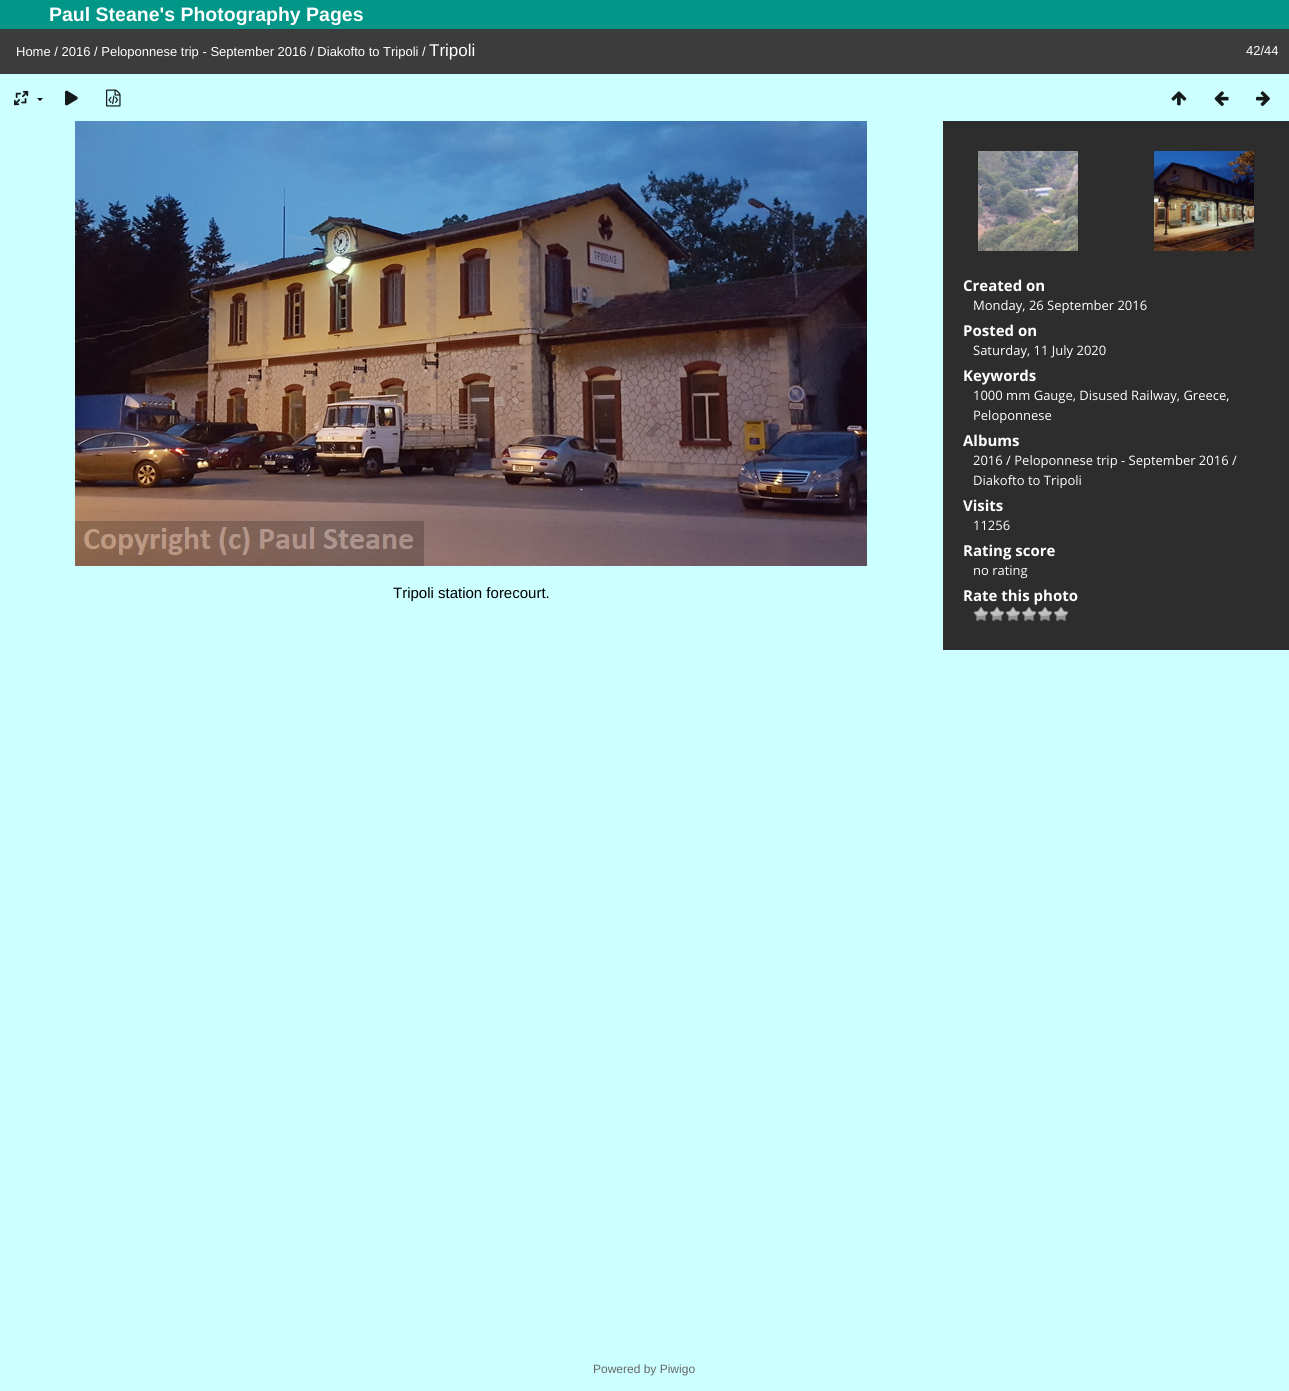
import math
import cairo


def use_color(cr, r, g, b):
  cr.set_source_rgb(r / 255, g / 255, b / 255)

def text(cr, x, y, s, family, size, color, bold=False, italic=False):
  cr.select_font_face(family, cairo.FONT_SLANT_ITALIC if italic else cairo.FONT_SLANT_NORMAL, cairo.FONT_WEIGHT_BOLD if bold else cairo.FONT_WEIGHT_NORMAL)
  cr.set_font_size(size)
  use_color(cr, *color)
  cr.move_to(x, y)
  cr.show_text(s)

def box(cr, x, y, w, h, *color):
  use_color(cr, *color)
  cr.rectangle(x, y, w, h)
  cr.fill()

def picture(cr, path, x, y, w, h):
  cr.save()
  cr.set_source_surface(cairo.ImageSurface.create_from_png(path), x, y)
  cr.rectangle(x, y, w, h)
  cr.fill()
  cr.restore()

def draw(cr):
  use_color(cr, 204, 255, 255)
  cr.paint()
  box(cr, 0, 0, 1289, 29, 0, 150, 136)
  box(cr, 0, 29, 1289, 45, 60, 60, 60)
  picture(cr, "img_01.png", 14, 90, 15, 16)
  use_color(cr, 0, 0, 0)
  cr.new_path()
  cr.move_to(37, 98)
  cr.line_to(43, 98)
  cr.line_to(40, 101)
  cr.close_path()
  cr.fill()
  picture(cr, "img_02.png", 65, 90, 13, 16)
  picture(cr, "img_03.png", 106, 89, 15, 18)
  picture(cr, "img_04.png", 1171, 91, 16, 15)
  picture(cr, "img_05.png", 1214, 91, 15, 15)
  picture(cr, "img_06.png", 1256, 91, 14, 15)
  picture(cr, "img_07.png", 75, 121, 792, 445)
  box(cr, 943, 121, 346, 529, 45, 45, 45)
  picture(cr, "img_08.png", 978, 151, 100, 100)
  picture(cr, "img_09.png", 1154, 151, 100, 100)
  picture(cr, "img_10.png", 973, 607, 16, 14)
  picture(cr, "img_10.png", 989, 607, 16, 14)
  picture(cr, "img_10.png", 1005, 607, 16, 14)
  picture(cr, "img_10.png", 1021, 607, 16, 14)
  picture(cr, "img_10.png", 1037, 607, 16, 14)
  picture(cr, "img_10.png", 1053, 607, 16, 14)
  text(cr, 49, 21, "Paul Steane's Photography Pages", "Liberation Sans", 19.5, (255, 255, 255), bold=True)
  text(cr, 16, 56, "Home / 2016 / Peloponnese trip - September 2016 / Diakofto to Tripoli /", "Liberation Sans", 13, (255, 255, 255))
  text(cr, 429, 56, "Tripoli", "Liberation Sans", 17, (255, 255, 255))
  text(cr, 1246, 55, "42/44", "Liberation Sans", 13, (255, 255, 255))
  text(cr, 393, 598, "Tripoli station forecourt.", "Liberation Sans", 15, (0, 0, 0))
  text(cr, 963, 291, "Created on", "Open Sans", 15, (255, 255, 255), bold=True)
  text(cr, 973, 310, "Monday, 26 September 2016", "Open Sans", 13, (255, 255, 255))
  text(cr, 963, 336, "Posted on", "Open Sans", 15, (255, 255, 255), bold=True)
  text(cr, 973, 355, "Saturday, 11 July 2020", "Open Sans", 13, (255, 255, 255))
  text(cr, 963, 381, "Keywords", "Open Sans", 15, (255, 255, 255), bold=True)
  text(cr, 973, 400, "1000 mm Gauge, Disused Railway, Greece,", "Open Sans", 13, (255, 255, 255))
  text(cr, 973, 420, "Peloponnese", "Open Sans", 13, (255, 255, 255))
  text(cr, 963, 446, "Albums", "Open Sans", 15, (255, 255, 255), bold=True)
  text(cr, 973, 465, "2016 / Peloponnese trip - September 2016 /", "Open Sans", 13, (255, 255, 255))
  text(cr, 973, 485, "Diakofto to Tripoli", "Open Sans", 13, (255, 255, 255))
  text(cr, 963, 511, "Visits", "Open Sans", 15, (255, 255, 255), bold=True)
  text(cr, 973, 530, "11256", "Open Sans", 13, (255, 255, 255))
  text(cr, 963, 556, "Rating score", "Open Sans", 15, (255, 255, 255), bold=True)
  text(cr, 973, 575, "no rating", "Open Sans", 13, (255, 255, 255))
  text(cr, 963, 601, "Rate this photo", "Open Sans", 15, (255, 255, 255), bold=True)
  text(cr, 593, 1373, "Powered by Piwigo", "Liberation Sans", 12, (102, 102, 102))


surface = cairo.ImageSurface(cairo.FORMAT_RGB24, 1289, 1391)
cr = cairo.Context(surface)
options = cairo.FontOptions()
options.set_hint_metrics(cairo.HINT_METRICS_OFF)
options.set_hint_style(cairo.HINT_STYLE_NONE)
cr.set_font_options(options)
cr.set_miter_limit(4)
draw(cr)
surface.write_to_png("out.png")
